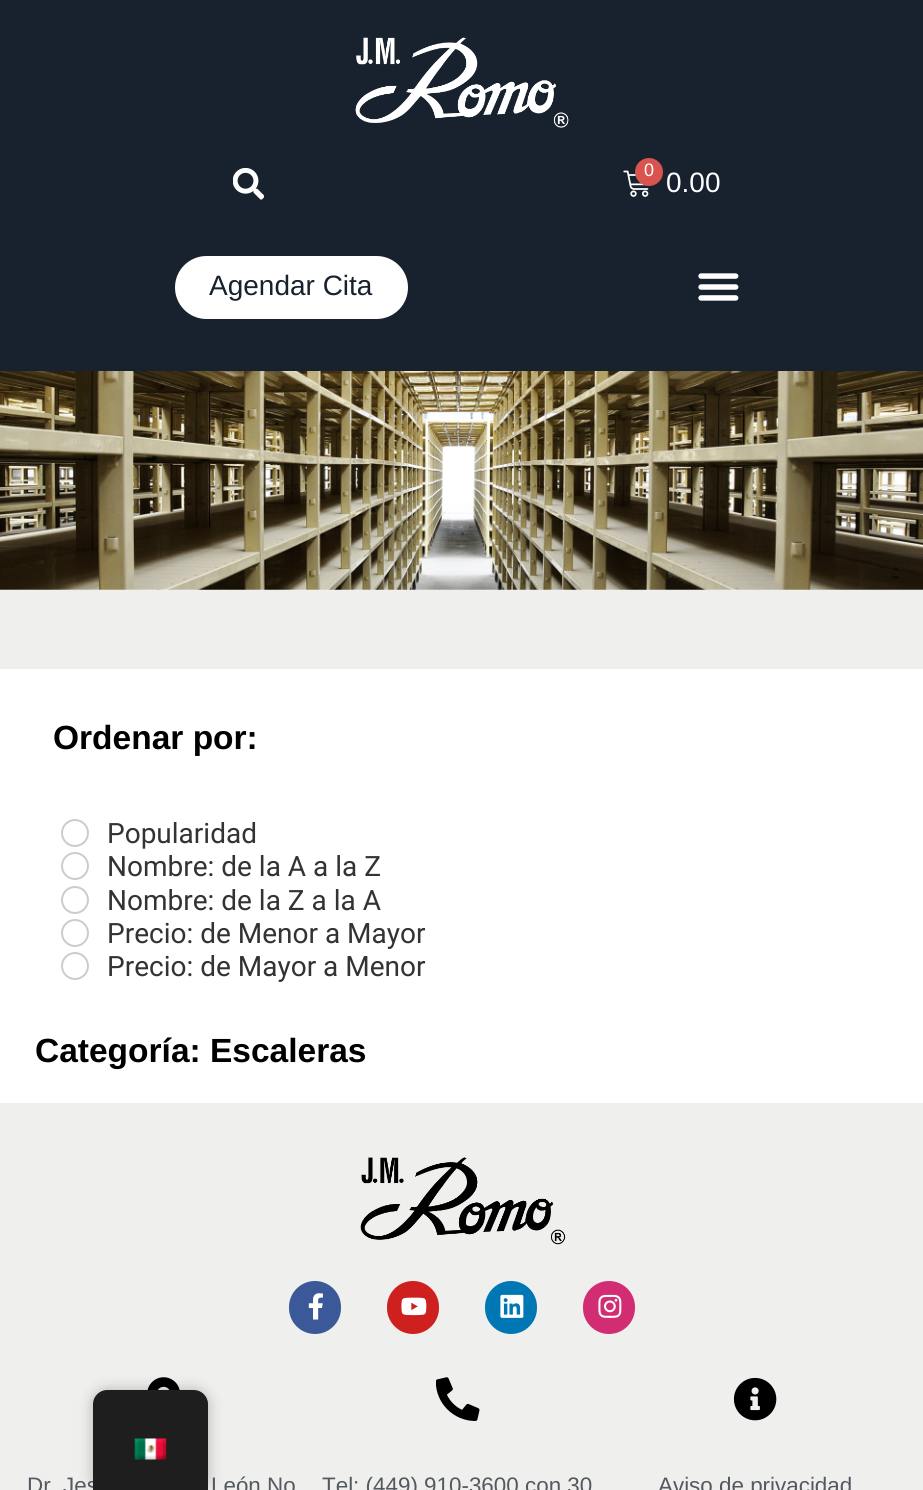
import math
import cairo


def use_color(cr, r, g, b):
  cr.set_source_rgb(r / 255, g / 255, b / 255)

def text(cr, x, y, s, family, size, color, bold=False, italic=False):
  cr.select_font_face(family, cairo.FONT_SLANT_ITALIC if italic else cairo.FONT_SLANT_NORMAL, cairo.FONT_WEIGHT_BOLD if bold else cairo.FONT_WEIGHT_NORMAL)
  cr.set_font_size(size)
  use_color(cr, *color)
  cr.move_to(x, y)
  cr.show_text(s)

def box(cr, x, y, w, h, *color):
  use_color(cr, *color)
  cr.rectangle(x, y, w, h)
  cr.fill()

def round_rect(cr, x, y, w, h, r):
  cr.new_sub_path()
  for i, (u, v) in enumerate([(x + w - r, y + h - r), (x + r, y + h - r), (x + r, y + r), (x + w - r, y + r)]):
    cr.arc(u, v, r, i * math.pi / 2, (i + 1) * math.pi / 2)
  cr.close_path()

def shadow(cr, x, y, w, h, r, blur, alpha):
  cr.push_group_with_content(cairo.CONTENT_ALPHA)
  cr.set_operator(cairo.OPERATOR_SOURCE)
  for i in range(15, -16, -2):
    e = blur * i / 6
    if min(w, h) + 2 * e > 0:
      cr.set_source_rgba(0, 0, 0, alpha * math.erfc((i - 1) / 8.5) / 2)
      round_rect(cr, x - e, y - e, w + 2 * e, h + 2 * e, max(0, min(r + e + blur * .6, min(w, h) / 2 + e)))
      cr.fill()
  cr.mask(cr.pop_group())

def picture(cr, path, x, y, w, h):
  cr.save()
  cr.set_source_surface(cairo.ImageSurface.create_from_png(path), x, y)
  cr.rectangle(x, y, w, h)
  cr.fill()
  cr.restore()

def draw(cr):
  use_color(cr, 255, 255, 255)
  cr.paint()
  box(cr, 0, 0, 923, 371, 24, 34, 46)
  picture(cr, "img_01.png", 355, 37, 214, 91)
  picture(cr, "img_02.png", 233, 168, 31, 32)
  picture(cr, "img_03.png", 623, 170, 26, 27)
  use_color(cr, 217, 83, 79)
  cr.arc(649, 172, 14, 0, 2 * math.pi)
  cr.fill()
  use_color(cr, 255, 255, 255)
  round_rect(cr, 175, 256, 233, 63, 31.5)
  cr.fill()
  picture(cr, "img_04.png", 698, 273, 41, 28)
  picture(cr, "img_05.png", 0, 371, 923, 219)
  box(cr, 0, 590, 923, 79, 239, 239, 237)
  cr.arc(75, 833, 13, 0, 2 * math.pi)
  use_color(cr, 204, 204, 204)
  cr.stroke()
  cr.arc(75, 866, 13, 0, 2 * math.pi)
  cr.stroke()
  cr.arc(75, 900, 13, 0, 2 * math.pi)
  cr.stroke()
  cr.arc(75, 933, 13, 0, 2 * math.pi)
  cr.stroke()
  cr.arc(75, 966, 13, 0, 2 * math.pi)
  cr.stroke()
  box(cr, 0, 1103, 923, 387, 239, 239, 237)
  picture(cr, "img_12.png", 147, 1377, 33, 13)
  use_color(cr, 0, 0, 0)
  shadow(cr, 93, 1390, 115, 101, 14, 7, 0.25)
  picture(cr, "img_07.png", 360, 1157, 206, 88)
  use_color(cr, 59, 89, 152)
  round_rect(cr, 289, 1281, 52, 53, 26)
  cr.fill()
  picture(cr, "img_08.png", 308, 1293, 15, 27)
  use_color(cr, 205, 32, 31)
  round_rect(cr, 387, 1281, 52, 53, 26)
  cr.fill()
  picture(cr, "img_09.png", 401, 1297, 26, 19)
  use_color(cr, 0, 119, 181)
  round_rect(cr, 485, 1281, 52, 53, 26)
  cr.fill()
  picture(cr, "img_10.png", 500, 1294, 24, 24)
  use_color(cr, 210, 45, 114)
  round_rect(cr, 583, 1281, 52, 53, 26)
  cr.fill()
  picture(cr, "img_11.png", 598, 1294, 24, 24)
  picture(cr, "img_13.png", 436, 1377, 44, 44)
  picture(cr, "img_14.png", 733, 1377, 44, 44)
  text(cr, 644, 176, "0", "Liberation Sans", 18, (255, 255, 255))
  text(cr, 666, 192, "0.00", "Liberation Sans", 28, (255, 255, 255))
  text(cr, 209, 295, "Agendar Cita", "Liberation Sans", 28, (24, 34, 46))
  text(cr, 53, 749, "Ordenar por:", "Liberation Sans", 33.5, (0, 0, 0), bold=True)
  text(cr, 107, 843, "Popularidad", "Roboto", 28, (51, 51, 51))
  text(cr, 107, 876, "Nombre: de la A a la Z", "Roboto", 28, (51, 51, 51))
  text(cr, 107, 910, "Nombre: de la Z a la A", "Roboto", 28, (51, 51, 51))
  text(cr, 107, 943, "Precio: de Menor a Mayor", "Roboto", 28, (51, 51, 51))
  text(cr, 107, 976, "Precio: de Mayor a Menor", "Roboto", 28, (51, 51, 51))
  text(cr, 35, 1062, "Categoría: Escaleras", "Liberation Sans", 33.5, (0, 0, 0), bold=True)
  text(cr, 27, 1493, "Dr. Jes", "Liberation Sans", 22.4, (84, 89, 95))
  use_color(cr, 30, 30, 30)
  cr.new_path()
  cr.move_to(107, 1390)
  cr.line_to(194, 1390)
  cr.curve_to(201.5, 1390, 208, 1396.5, 208, 1404)
  cr.line_to(208, 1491)
  cr.line_to(93, 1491)
  cr.line_to(93, 1404)
  cr.curve_to(93, 1396.5, 99.5, 1390, 107, 1390)
  cr.close_path()
  cr.fill()
  picture(cr, "img_06.png", 134, 1438, 33, 22)
  text(cr, 211, 1493, "León No", "Liberation Sans", 22.4, (84, 89, 95))
  text(cr, 322, 1493, "Tel: (449) 910-3600 con 30", "Liberation Sans", 22.4, (84, 89, 95))
  text(cr, 658, 1493, "Aviso de privacidad", "Liberation Sans", 22.4, (84, 89, 95))


surface = cairo.ImageSurface(cairo.FORMAT_RGB24, 923, 1490)
cr = cairo.Context(surface)
options = cairo.FontOptions()
options.set_hint_metrics(cairo.HINT_METRICS_OFF)
options.set_hint_style(cairo.HINT_STYLE_NONE)
cr.set_font_options(options)
cr.set_miter_limit(4)
draw(cr)
surface.write_to_png("out.png")
